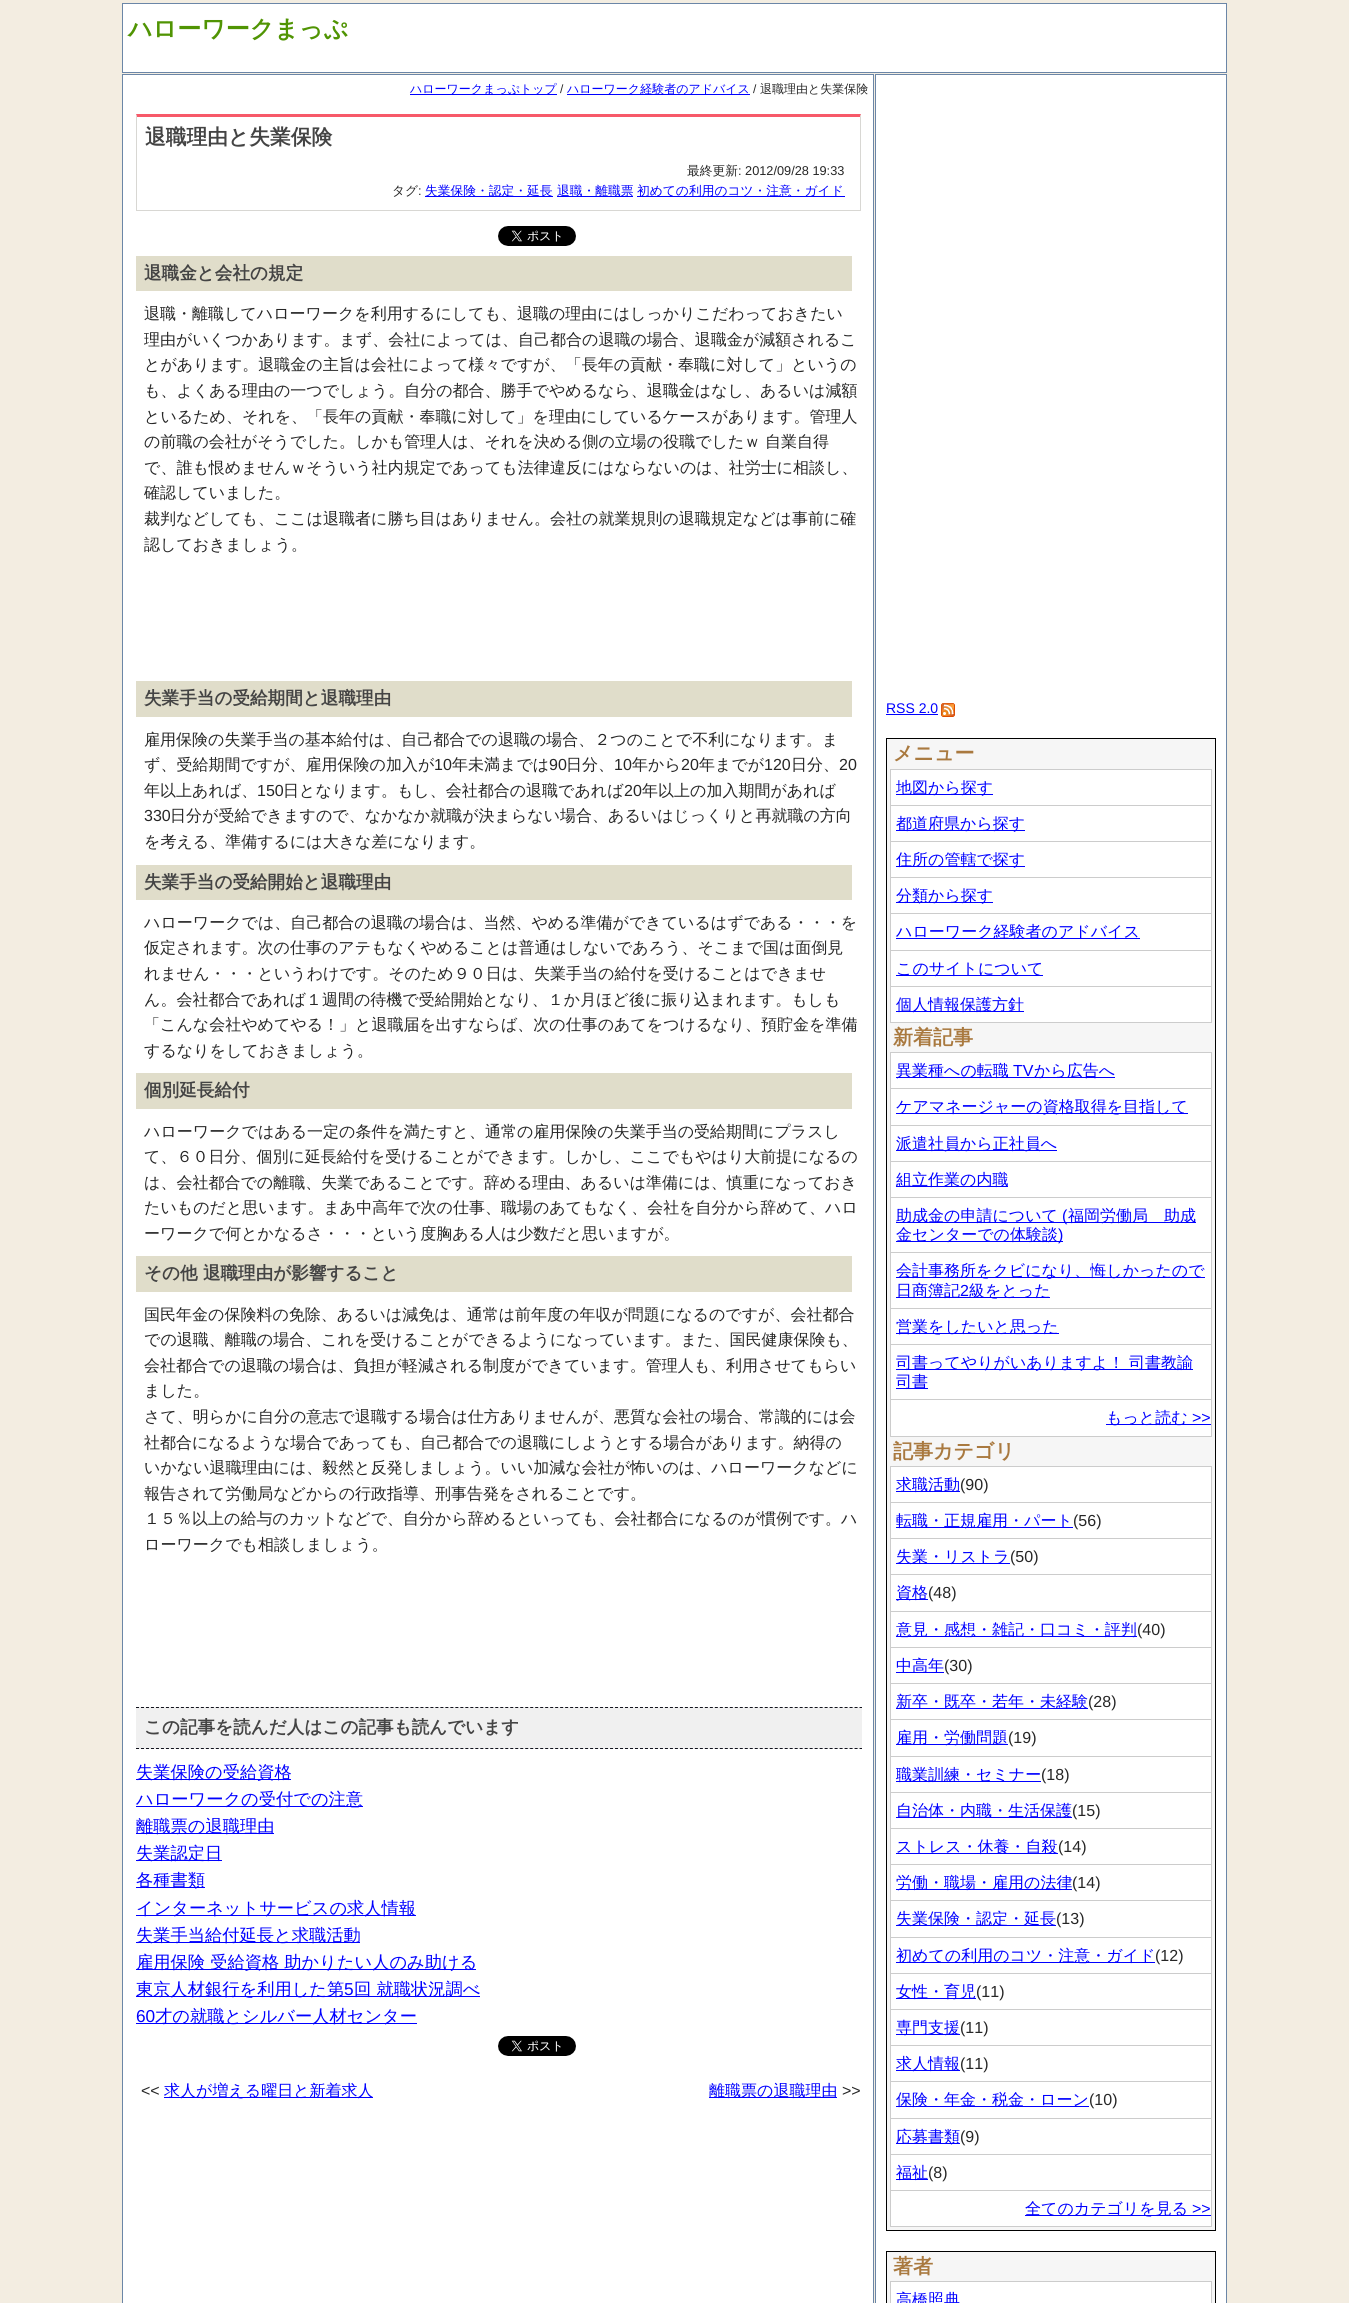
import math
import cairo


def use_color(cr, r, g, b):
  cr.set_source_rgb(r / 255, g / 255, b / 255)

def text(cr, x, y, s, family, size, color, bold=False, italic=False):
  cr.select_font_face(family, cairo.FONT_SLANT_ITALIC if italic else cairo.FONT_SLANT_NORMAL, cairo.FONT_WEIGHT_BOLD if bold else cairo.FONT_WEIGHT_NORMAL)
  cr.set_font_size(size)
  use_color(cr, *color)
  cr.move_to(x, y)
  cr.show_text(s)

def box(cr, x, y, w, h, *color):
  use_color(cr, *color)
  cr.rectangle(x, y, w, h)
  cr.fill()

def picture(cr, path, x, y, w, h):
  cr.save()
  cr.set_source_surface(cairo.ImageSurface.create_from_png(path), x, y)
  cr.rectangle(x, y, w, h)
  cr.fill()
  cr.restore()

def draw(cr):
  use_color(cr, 243, 237, 225)
  cr.paint()
  use_color(cr, 255, 255, 255)
  cr.rectangle(122.5, 3.5, 1104, 69)
  cr.fill_preserve()
  use_color(cr, 107, 134, 167)
  cr.set_line_width(1)
  cr.stroke()
  use_color(cr, 255, 255, 255)
  cr.rectangle(122.5, 74.5, 751, 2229)
  cr.fill_preserve()
  use_color(cr, 107, 134, 167)
  cr.stroke()
  box(cr, 410, 94, 147, 1, 0, 0, 255)
  box(cr, 567, 94, 183, 1, 0, 0, 255)
  use_color(cr, 247, 89, 105)
  cr.new_path()
  cr.move_to(136, 114)
  cr.line_to(861, 114)
  cr.line_to(860, 117)
  cr.line_to(137, 117)
  cr.close_path()
  cr.fill()
  use_color(cr, 216, 215, 211)
  cr.new_path()
  cr.move_to(861, 114)
  cr.line_to(861, 211)
  cr.line_to(860, 210)
  cr.line_to(860, 117)
  cr.close_path()
  cr.fill()
  box(cr, 136, 210, 725, 1, 216, 215, 211)
  cr.new_path()
  cr.move_to(136, 211)
  cr.line_to(136, 114)
  cr.line_to(137, 117)
  cr.line_to(137, 210)
  cr.close_path()
  cr.fill()
  box(cr, 425, 196, 128, 1, 0, 0, 255)
  box(cr, 557, 196, 76, 1, 0, 0, 255)
  box(cr, 637, 196, 208, 1, 0, 0, 255)
  picture(cr, "img_01.png", 498, 226, 78, 20)
  box(cr, 136, 256, 716, 35, 224, 221, 202)
  box(cr, 136, 681, 716, 36, 224, 221, 202)
  box(cr, 136, 865, 716, 35, 224, 221, 202)
  box(cr, 136, 1073, 716, 36, 224, 221, 202)
  box(cr, 136, 1256, 716, 36, 224, 221, 202)
  box(cr, 136, 1707, 726, 42, 240, 240, 240)
  cr.new_path()
  cr.move_to(136, 1707.5)
  cr.line_to(862, 1707.5)
  use_color(cr, 18, 19, 29)
  cr.set_dash([3, 1.99])
  cr.stroke()
  cr.new_path()
  cr.move_to(136, 1748.5)
  cr.line_to(862, 1748.5)
  cr.stroke()
  box(cr, 136, 1779, 155, 1, 0, 0, 255)
  box(cr, 136, 1806, 227, 1, 0, 0, 255)
  box(cr, 136, 1833, 138, 1, 0, 0, 255)
  box(cr, 136, 1860, 86, 1, 0, 0, 255)
  box(cr, 136, 1887, 69, 1, 0, 0, 255)
  box(cr, 136, 1915, 280, 1, 0, 0, 255)
  box(cr, 136, 1942, 224, 1, 0, 0, 255)
  box(cr, 136, 1969, 340, 1, 0, 0, 255)
  box(cr, 136, 1996, 344, 1, 0, 0, 255)
  box(cr, 136, 2023, 281, 1, 0, 0, 255)
  picture(cr, "img_01.png", 498, 2036, 78, 20)
  box(cr, 164, 2097, 209, 1, 0, 0, 255)
  box(cr, 709, 2097, 128, 1, 0, 0, 255)
  use_color(cr, 255, 255, 255)
  cr.rectangle(875.5, 74.5, 351, 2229)
  cr.fill_preserve()
  use_color(cr, 107, 134, 167)
  cr.set_dash([])
  cr.stroke()
  box(cr, 886, 714, 52, 1, 0, 0, 255)
  picture(cr, "img_02.png", 941, 703, 14, 14)
  use_color(cr, 246, 246, 246)
  cr.rectangle(886.5, 738.5, 329, 1492)
  cr.fill_preserve()
  use_color(cr, 0, 0, 0)
  cr.stroke()
  box(cr, 891, 770, 320, 35, 255, 255, 255)
  box(cr, 890, 769, 322, 1, 204, 204, 204)
  box(cr, 1211, 769, 1, 36, 204, 204, 204)
  box(cr, 890, 769, 1, 36, 204, 204, 204)
  box(cr, 896, 794, 97, 1, 0, 0, 255)
  box(cr, 891, 806, 320, 35, 255, 255, 255)
  box(cr, 890, 805, 322, 1, 204, 204, 204)
  box(cr, 1211, 805, 1, 36, 204, 204, 204)
  box(cr, 890, 805, 1, 36, 204, 204, 204)
  box(cr, 896, 830, 129, 1, 0, 0, 255)
  box(cr, 891, 842, 320, 35, 255, 255, 255)
  box(cr, 890, 841, 322, 1, 204, 204, 204)
  box(cr, 1211, 841, 1, 36, 204, 204, 204)
  box(cr, 890, 841, 1, 36, 204, 204, 204)
  box(cr, 896, 866, 129, 1, 0, 0, 255)
  box(cr, 891, 878, 320, 35, 255, 255, 255)
  box(cr, 890, 877, 322, 1, 204, 204, 204)
  box(cr, 1211, 877, 1, 36, 204, 204, 204)
  box(cr, 890, 877, 1, 36, 204, 204, 204)
  box(cr, 896, 902, 97, 1, 0, 0, 255)
  box(cr, 891, 914, 320, 36, 255, 255, 255)
  box(cr, 890, 913, 322, 1, 204, 204, 204)
  box(cr, 1211, 913, 1, 37, 204, 204, 204)
  box(cr, 890, 913, 1, 37, 204, 204, 204)
  box(cr, 896, 938, 244, 1, 0, 0, 255)
  box(cr, 891, 951, 320, 35, 255, 255, 255)
  box(cr, 890, 950, 322, 1, 204, 204, 204)
  box(cr, 1211, 950, 1, 36, 204, 204, 204)
  box(cr, 890, 950, 1, 36, 204, 204, 204)
  box(cr, 896, 975, 147, 1, 0, 0, 255)
  use_color(cr, 255, 255, 255)
  cr.rectangle(890.5, 986.5, 321, 36)
  cr.fill_preserve()
  use_color(cr, 204, 204, 204)
  cr.stroke()
  box(cr, 896, 1011, 128, 1, 0, 0, 255)
  box(cr, 891, 1053, 320, 35, 255, 255, 255)
  box(cr, 890, 1052, 322, 1, 204, 204, 204)
  box(cr, 1211, 1052, 1, 36, 204, 204, 204)
  box(cr, 890, 1052, 1, 36, 204, 204, 204)
  box(cr, 896, 1077, 219, 1, 0, 0, 255)
  box(cr, 891, 1089, 320, 36, 255, 255, 255)
  box(cr, 890, 1088, 322, 1, 204, 204, 204)
  box(cr, 1211, 1088, 1, 37, 204, 204, 204)
  box(cr, 890, 1088, 1, 37, 204, 204, 204)
  box(cr, 896, 1113, 292, 1, 0, 0, 255)
  box(cr, 891, 1126, 320, 35, 255, 255, 255)
  box(cr, 890, 1125, 322, 1, 204, 204, 204)
  box(cr, 1211, 1125, 1, 36, 204, 204, 204)
  box(cr, 890, 1125, 1, 36, 204, 204, 204)
  box(cr, 896, 1150, 161, 1, 0, 0, 255)
  box(cr, 891, 1162, 320, 35, 255, 255, 255)
  box(cr, 890, 1161, 322, 1, 204, 204, 204)
  box(cr, 1211, 1161, 1, 36, 204, 204, 204)
  box(cr, 890, 1161, 1, 36, 204, 204, 204)
  box(cr, 896, 1186, 112, 1, 0, 0, 255)
  box(cr, 891, 1198, 320, 54, 255, 255, 255)
  box(cr, 890, 1197, 322, 1, 204, 204, 204)
  box(cr, 1211, 1197, 1, 55, 204, 204, 204)
  box(cr, 890, 1197, 1, 55, 204, 204, 204)
  box(cr, 896, 1222, 300, 1, 0, 0, 255)
  box(cr, 896, 1241, 167, 1, 0, 0, 255)
  box(cr, 891, 1253, 320, 55, 255, 255, 255)
  box(cr, 890, 1252, 322, 1, 204, 204, 204)
  box(cr, 1211, 1252, 1, 56, 204, 204, 204)
  box(cr, 890, 1252, 1, 56, 204, 204, 204)
  box(cr, 896, 1277, 309, 1, 0, 0, 255)
  box(cr, 896, 1297, 154, 1, 0, 0, 255)
  box(cr, 891, 1309, 320, 35, 255, 255, 255)
  box(cr, 890, 1308, 322, 1, 204, 204, 204)
  box(cr, 1211, 1308, 1, 36, 204, 204, 204)
  box(cr, 890, 1308, 1, 36, 204, 204, 204)
  box(cr, 896, 1333, 163, 1, 0, 0, 255)
  box(cr, 891, 1345, 320, 54, 255, 255, 255)
  box(cr, 890, 1344, 322, 1, 204, 204, 204)
  box(cr, 1211, 1344, 1, 55, 204, 204, 204)
  box(cr, 890, 1344, 1, 55, 204, 204, 204)
  box(cr, 896, 1369, 297, 1, 0, 0, 255)
  box(cr, 896, 1388, 32, 1, 0, 0, 255)
  use_color(cr, 255, 255, 255)
  cr.rectangle(890.5, 1399.5, 321, 37)
  cr.fill_preserve()
  use_color(cr, 204, 204, 204)
  cr.stroke()
  box(cr, 1106, 1424, 105, 1, 0, 0, 255)
  box(cr, 891, 1467, 320, 35, 255, 255, 255)
  box(cr, 890, 1466, 322, 1, 204, 204, 204)
  box(cr, 1211, 1466, 1, 36, 204, 204, 204)
  box(cr, 890, 1466, 1, 36, 204, 204, 204)
  box(cr, 896, 1491, 64, 1, 0, 0, 255)
  box(cr, 891, 1503, 320, 35, 255, 255, 255)
  box(cr, 890, 1502, 322, 1, 204, 204, 204)
  box(cr, 1211, 1502, 1, 36, 204, 204, 204)
  box(cr, 890, 1502, 1, 36, 204, 204, 204)
  box(cr, 896, 1527, 177, 1, 0, 0, 255)
  box(cr, 891, 1539, 320, 35, 255, 255, 255)
  box(cr, 890, 1538, 322, 1, 204, 204, 204)
  box(cr, 1211, 1538, 1, 36, 204, 204, 204)
  box(cr, 890, 1538, 1, 36, 204, 204, 204)
  box(cr, 896, 1563, 114, 1, 0, 0, 255)
  box(cr, 891, 1575, 320, 36, 255, 255, 255)
  box(cr, 890, 1574, 322, 1, 204, 204, 204)
  box(cr, 1211, 1574, 1, 37, 204, 204, 204)
  box(cr, 890, 1574, 1, 37, 204, 204, 204)
  box(cr, 896, 1599, 32, 1, 0, 0, 255)
  box(cr, 891, 1612, 320, 35, 255, 255, 255)
  box(cr, 890, 1611, 322, 1, 204, 204, 204)
  box(cr, 1211, 1611, 1, 36, 204, 204, 204)
  box(cr, 890, 1611, 1, 36, 204, 204, 204)
  box(cr, 896, 1636, 241, 1, 0, 0, 255)
  box(cr, 891, 1648, 320, 35, 255, 255, 255)
  box(cr, 890, 1647, 322, 1, 204, 204, 204)
  box(cr, 1211, 1647, 1, 36, 204, 204, 204)
  box(cr, 890, 1647, 1, 36, 204, 204, 204)
  box(cr, 896, 1672, 48, 1, 0, 0, 255)
  box(cr, 891, 1684, 320, 35, 255, 255, 255)
  box(cr, 890, 1683, 322, 1, 204, 204, 204)
  box(cr, 1211, 1683, 1, 36, 204, 204, 204)
  box(cr, 890, 1683, 1, 36, 204, 204, 204)
  box(cr, 896, 1708, 192, 1, 0, 0, 255)
  box(cr, 891, 1720, 320, 36, 255, 255, 255)
  box(cr, 890, 1719, 322, 1, 204, 204, 204)
  box(cr, 1211, 1719, 1, 37, 204, 204, 204)
  box(cr, 890, 1719, 1, 37, 204, 204, 204)
  box(cr, 896, 1744, 112, 1, 0, 0, 255)
  box(cr, 891, 1757, 320, 35, 255, 255, 255)
  box(cr, 890, 1756, 322, 1, 204, 204, 204)
  box(cr, 1211, 1756, 1, 36, 204, 204, 204)
  box(cr, 890, 1756, 1, 36, 204, 204, 204)
  box(cr, 896, 1781, 145, 1, 0, 0, 255)
  box(cr, 891, 1793, 320, 35, 255, 255, 255)
  box(cr, 890, 1792, 322, 1, 204, 204, 204)
  box(cr, 1211, 1792, 1, 36, 204, 204, 204)
  box(cr, 890, 1792, 1, 36, 204, 204, 204)
  box(cr, 896, 1817, 176, 1, 0, 0, 255)
  box(cr, 891, 1829, 320, 35, 255, 255, 255)
  box(cr, 890, 1828, 322, 1, 204, 204, 204)
  box(cr, 1211, 1828, 1, 36, 204, 204, 204)
  box(cr, 890, 1828, 1, 36, 204, 204, 204)
  box(cr, 896, 1853, 162, 1, 0, 0, 255)
  box(cr, 891, 1865, 320, 35, 255, 255, 255)
  box(cr, 890, 1864, 322, 1, 204, 204, 204)
  box(cr, 1211, 1864, 1, 36, 204, 204, 204)
  box(cr, 890, 1864, 1, 36, 204, 204, 204)
  box(cr, 896, 1889, 176, 1, 0, 0, 255)
  box(cr, 891, 1901, 320, 36, 255, 255, 255)
  box(cr, 890, 1900, 322, 1, 204, 204, 204)
  box(cr, 1211, 1900, 1, 37, 204, 204, 204)
  box(cr, 890, 1900, 1, 37, 204, 204, 204)
  box(cr, 896, 1925, 160, 1, 0, 0, 255)
  box(cr, 891, 1938, 320, 35, 255, 255, 255)
  box(cr, 890, 1937, 322, 1, 204, 204, 204)
  box(cr, 1211, 1937, 1, 36, 204, 204, 204)
  box(cr, 890, 1937, 1, 36, 204, 204, 204)
  box(cr, 896, 1962, 259, 1, 0, 0, 255)
  box(cr, 891, 1974, 320, 35, 255, 255, 255)
  box(cr, 890, 1973, 322, 1, 204, 204, 204)
  box(cr, 1211, 1973, 1, 36, 204, 204, 204)
  box(cr, 890, 1973, 1, 36, 204, 204, 204)
  box(cr, 896, 1998, 80, 1, 0, 0, 255)
  box(cr, 891, 2010, 320, 35, 255, 255, 255)
  box(cr, 890, 2009, 322, 1, 204, 204, 204)
  box(cr, 1211, 2009, 1, 36, 204, 204, 204)
  box(cr, 890, 2009, 1, 36, 204, 204, 204)
  box(cr, 896, 2034, 64, 1, 0, 0, 255)
  box(cr, 891, 2046, 320, 35, 255, 255, 255)
  box(cr, 890, 2045, 322, 1, 204, 204, 204)
  box(cr, 1211, 2045, 1, 36, 204, 204, 204)
  box(cr, 890, 2045, 1, 36, 204, 204, 204)
  box(cr, 896, 2070, 64, 1, 0, 0, 255)
  box(cr, 891, 2082, 320, 36, 255, 255, 255)
  box(cr, 890, 2081, 322, 1, 204, 204, 204)
  box(cr, 1211, 2081, 1, 37, 204, 204, 204)
  box(cr, 890, 2081, 1, 37, 204, 204, 204)
  box(cr, 896, 2106, 193, 1, 0, 0, 255)
  box(cr, 891, 2119, 320, 35, 255, 255, 255)
  box(cr, 890, 2118, 322, 1, 204, 204, 204)
  box(cr, 1211, 2118, 1, 36, 204, 204, 204)
  box(cr, 890, 2118, 1, 36, 204, 204, 204)
  box(cr, 896, 2143, 64, 1, 0, 0, 255)
  box(cr, 891, 2155, 320, 35, 255, 255, 255)
  box(cr, 890, 2154, 322, 1, 204, 204, 204)
  box(cr, 1211, 2154, 1, 36, 204, 204, 204)
  box(cr, 890, 2154, 1, 36, 204, 204, 204)
  box(cr, 896, 2179, 32, 1, 0, 0, 255)
  use_color(cr, 255, 255, 255)
  cr.rectangle(890.5, 2190.5, 321, 36)
  cr.fill_preserve()
  use_color(cr, 204, 204, 204)
  cr.stroke()
  box(cr, 1025, 2215, 186, 1, 0, 0, 255)
  use_color(cr, 246, 246, 246)
  cr.rectangle(886.5, 2251.5, 329, 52)
  cr.fill_preserve()
  use_color(cr, 0, 0, 0)
  cr.stroke()
  use_color(cr, 255, 255, 255)
  cr.rectangle(890.5, 2281.5, 321, 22)
  cr.fill_preserve()
  use_color(cr, 204, 204, 204)
  cr.stroke()
  text(cr, 128, 37, "ハローワークまっぷ", "WenQuanYi Zen Hei", 24, (80, 148, 3), bold=True)
  text(cr, 410, 93, "ハローワークまっぷトップ", "WenQuanYi Zen Hei Medium", 12, (0, 0, 255))
  text(cr, 560, 93, "/", "Liberation Sans", 12, (38, 38, 38))
  text(cr, 567, 93, "ハローワーク経験者のアドバイス", "WenQuanYi Zen Hei Medium", 12, (0, 0, 255))
  text(cr, 753, 93, "/", "Liberation Sans", 12, (38, 38, 38))
  text(cr, 760, 93, "退職理由と失業保険", "WenQuanYi Zen Hei Medium", 12, (38, 38, 38))
  text(cr, 145, 144, "退職理由と失業保険", "WenQuanYi Zen Hei", 20.75, (68, 68, 68), bold=True)
  text(cr, 687, 175, "最終更新", "WenQuanYi Zen Hei Medium", 12.75, (38, 38, 38))
  text(cr, 738, 175, ": 2012/09/28 19:33", "Liberation Sans", 12.75, (38, 38, 38))
  text(cr, 392, 195, "タグ", "WenQuanYi Zen Hei Medium", 12.75, (38, 38, 38))
  text(cr, 418, 195, ":", "Liberation Sans", 12.75, (38, 38, 38))
  text(cr, 425, 195, "失業保険・認定・延長", "WenQuanYi Zen Hei Medium", 12.75, (0, 0, 255))
  text(cr, 557, 195, "退職・離職票", "WenQuanYi Zen Hei Medium", 12.75, (0, 0, 255))
  text(cr, 637, 195, "初めての利用のコツ・注意・ガイド", "WenQuanYi Zen Hei Medium", 12.75, (0, 0, 255))
  text(cr, 144, 279, "退職金と会社の規定", "WenQuanYi Zen Hei", 17.6, (68, 68, 68), bold=True)
  text(cr, 144, 319, "退職・離職してハローワークを利用するにしても、退職の理由にはしっかりこだわっておきたい", "WenQuanYi Zen Hei Medium", 16, (38, 38, 38))
  text(cr, 144, 345, "理由がいくつかあります。まず、会社によっては、自己都合の退職の場合、退職金が減額されるこ", "WenQuanYi Zen Hei Medium", 16, (38, 38, 38))
  text(cr, 144, 370, "とがあります。退職金の主旨は会社によって様々ですが、「長年の貢献・奉職に対して」というの", "WenQuanYi Zen Hei Medium", 16, (38, 38, 38))
  text(cr, 144, 396, "も、よくある理由の一つでしょう。自分の都合、勝手でやめるなら、退職金はなし、あるいは減額", "WenQuanYi Zen Hei Medium", 16, (38, 38, 38))
  text(cr, 144, 422, "といるため、それを、「長年の貢献・奉職に対して」を理由にしているケースがあります。管理人", "WenQuanYi Zen Hei Medium", 16, (38, 38, 38))
  text(cr, 144, 447, "の前職の会社がそうでした。しかも管理人は、それを決める側の立場の役職でしたｗ 自業自得", "WenQuanYi Zen Hei Medium", 16, (38, 38, 38))
  text(cr, 144, 473, "で、誰も恨めませんｗそういう社内規定であっても法律違反にはならないのは、社労士に相談し、", "WenQuanYi Zen Hei Medium", 16, (38, 38, 38))
  text(cr, 144, 498, "確認していました。", "WenQuanYi Zen Hei Medium", 16, (38, 38, 38))
  text(cr, 144, 524, "裁判などしても、ここは退職者に勝ち目はありません。会社の就業規則の退職規定などは事前に確", "WenQuanYi Zen Hei Medium", 16, (38, 38, 38))
  text(cr, 144, 550, "認しておきましょう。", "WenQuanYi Zen Hei Medium", 16, (38, 38, 38))
  text(cr, 144, 704, "失業手当の受給期間と退職理由", "WenQuanYi Zen Hei", 17.6, (68, 68, 68), bold=True)
  text(cr, 144, 745, "雇用保険の失業手当の基本給付は、自己都合での退職の場合、２つのことで不利になります。ま", "WenQuanYi Zen Hei Medium", 16, (38, 38, 38))
  text(cr, 144, 770, "ず、受給期間ですが、雇用保険の加入が", "WenQuanYi Zen Hei Medium", 16, (38, 38, 38))
  text(cr, 434, 770, "10", "Liberation Sans", 16, (38, 38, 38))
  text(cr, 452, 770, "年未満までは", "WenQuanYi Zen Hei Medium", 16, (38, 38, 38))
  text(cr, 549, 770, "90", "Liberation Sans", 16, (38, 38, 38))
  text(cr, 566, 770, "日分、", "WenQuanYi Zen Hei Medium", 16, (38, 38, 38))
  text(cr, 614, 770, "10", "Liberation Sans", 16, (38, 38, 38))
  text(cr, 632, 770, "年から", "WenQuanYi Zen Hei Medium", 16, (38, 38, 38))
  text(cr, 681, 770, "20", "Liberation Sans", 16, (38, 38, 38))
  text(cr, 699, 770, "年までが", "WenQuanYi Zen Hei Medium", 16, (38, 38, 38))
  text(cr, 764, 770, "120", "Liberation Sans", 16, (38, 38, 38))
  text(cr, 791, 770, "日分、", "WenQuanYi Zen Hei Medium", 16, (38, 38, 38))
  text(cr, 839, 770, "20", "Liberation Sans", 16, (38, 38, 38))
  text(cr, 144, 796, "年以上あれば、", "WenQuanYi Zen Hei Medium", 16, (38, 38, 38))
  text(cr, 257, 796, "150", "Liberation Sans", 16, (38, 38, 38))
  text(cr, 283, 796, "日となります。もし、会社都合の退職であれば", "WenQuanYi Zen Hei Medium", 16, (38, 38, 38))
  text(cr, 624, 796, "20", "Liberation Sans", 16, (38, 38, 38))
  text(cr, 642, 796, "年以上の加入期間があれば", "WenQuanYi Zen Hei Medium", 16, (38, 38, 38))
  text(cr, 144, 821, "330", "Liberation Sans", 16, (38, 38, 38))
  text(cr, 170, 821, "日分が受給できますので、なかなか就職が決まらない場合、あるいはじっくりと再就職の方向", "WenQuanYi Zen Hei Medium", 16, (38, 38, 38))
  text(cr, 144, 847, "を考える、準備するには大きな差になります。", "WenQuanYi Zen Hei Medium", 16, (38, 38, 38))
  text(cr, 144, 888, "失業手当の受給開始と退職理由", "WenQuanYi Zen Hei", 17.6, (68, 68, 68), bold=True)
  text(cr, 144, 928, "ハローワークでは、自己都合の退職の場合は、当然、やめる準備ができているはずである・・・を", "WenQuanYi Zen Hei Medium", 16, (38, 38, 38))
  text(cr, 144, 953, "仮定されます。次の仕事のアテもなくやめることは普通はしないであろう、そこまで国は面倒見", "WenQuanYi Zen Hei Medium", 16, (38, 38, 38))
  text(cr, 144, 979, "れません・・・というわけです。そのため９０日は、失業手当の給付を受けることはできませ", "WenQuanYi Zen Hei Medium", 16, (38, 38, 38))
  text(cr, 144, 1005, "ん。会社都合であれば１週間の待機で受給開始となり、１か月ほど後に振り込まれます。もしも", "WenQuanYi Zen Hei Medium", 16, (38, 38, 38))
  text(cr, 144, 1030, "「こんな会社やめてやる！」と退職届を出すならば、次の仕事のあてをつけるなり、預貯金を準備", "WenQuanYi Zen Hei Medium", 16, (38, 38, 38))
  text(cr, 144, 1056, "するなりをしておきましょう。", "WenQuanYi Zen Hei Medium", 16, (38, 38, 38))
  text(cr, 144, 1096, "個別延長給付", "WenQuanYi Zen Hei", 17.6, (68, 68, 68), bold=True)
  text(cr, 144, 1137, "ハローワークではある一定の条件を満たすと、通常の雇用保険の失業手当の受給期間にプラスし", "WenQuanYi Zen Hei Medium", 16, (38, 38, 38))
  text(cr, 144, 1162, "て、６０日分、個別に延長給付を受けることができます。しかし、ここでもやはり大前提になるの", "WenQuanYi Zen Hei Medium", 16, (38, 38, 38))
  text(cr, 144, 1188, "は、会社都合での離職、失業であることです。辞める理由、あるいは準備には、慎重になっておき", "WenQuanYi Zen Hei Medium", 16, (38, 38, 38))
  text(cr, 144, 1213, "たいものだと思います。まあ中高年で次の仕事、職場のあてもなく、会社を自分から辞めて、ハロ", "WenQuanYi Zen Hei Medium", 16, (38, 38, 38))
  text(cr, 144, 1239, "ーワークで何とかなるさ・・・という度胸ある人は少数だと思いますが。", "WenQuanYi Zen Hei Medium", 16, (38, 38, 38))
  text(cr, 144, 1279, "その他 退職理由が影響すること", "WenQuanYi Zen Hei", 17.6, (68, 68, 68), bold=True)
  text(cr, 144, 1320, "国民年金の保険料の免除、あるいは減免は、通常は前年度の年収が問題になるのですが、会社都合", "WenQuanYi Zen Hei Medium", 16, (38, 38, 38))
  text(cr, 144, 1345, "での退職、離職の場合、これを受けることができるようになっています。また、国民健康保険も、", "WenQuanYi Zen Hei Medium", 16, (38, 38, 38))
  text(cr, 144, 1371, "会社都合での退職の場合は、負担が軽減される制度ができています。管理人も、利用させてもらい", "WenQuanYi Zen Hei Medium", 16, (38, 38, 38))
  text(cr, 144, 1396, "ました。", "WenQuanYi Zen Hei Medium", 16, (38, 38, 38))
  text(cr, 144, 1422, "さて、明らかに自分の意志で退職する場合は仕方ありませんが、悪質な会社の場合、常識的には会", "WenQuanYi Zen Hei Medium", 16, (38, 38, 38))
  text(cr, 144, 1448, "社都合になるような場合であっても、自己都合での退職にしようとする場合があります。納得の", "WenQuanYi Zen Hei Medium", 16, (38, 38, 38))
  text(cr, 144, 1473, "いかない退職理由には、毅然と反発しましょう。いい加減な会社が怖いのは、ハローワークなどに", "WenQuanYi Zen Hei Medium", 16, (38, 38, 38))
  text(cr, 144, 1499, "報告されて労働局などからの行政指導、刑事告発をされることです。", "WenQuanYi Zen Hei Medium", 16, (38, 38, 38))
  text(cr, 144, 1524, "１５％以上の給与のカットなどで、自分から辞めるといっても、会社都合になるのが慣例です。ハ", "WenQuanYi Zen Hei Medium", 16, (38, 38, 38))
  text(cr, 144, 1550, "ローワークでも相談しましょう。", "WenQuanYi Zen Hei Medium", 16, (38, 38, 38))
  text(cr, 144, 1733, "この記事を読んだ人はこの記事も読んでいます", "WenQuanYi Zen Hei", 17.6, (68, 68, 68), bold=True)
  text(cr, 136, 1778, "失業保険の受給資格", "WenQuanYi Zen Hei Medium", 17.25, (0, 0, 255))
  text(cr, 136, 1805, "ハローワークの受付での注意", "WenQuanYi Zen Hei Medium", 17.25, (0, 0, 255))
  text(cr, 136, 1832, "離職票の退職理由", "WenQuanYi Zen Hei Medium", 17.25, (0, 0, 255))
  text(cr, 136, 1859, "失業認定日", "WenQuanYi Zen Hei Medium", 17.25, (0, 0, 255))
  text(cr, 136, 1886, "各種書類", "WenQuanYi Zen Hei Medium", 17.25, (0, 0, 255))
  text(cr, 136, 1914, "インターネットサービスの求人情報", "WenQuanYi Zen Hei Medium", 17.25, (0, 0, 255))
  text(cr, 136, 1941, "失業手当給付延長と求職活動", "WenQuanYi Zen Hei Medium", 17.25, (0, 0, 255))
  text(cr, 136, 1968, "雇用保険 受給資格 助かりたい人のみ助ける", "WenQuanYi Zen Hei Medium", 17.25, (0, 0, 255))
  text(cr, 136, 1995, "東京人材銀行を利用した第", "WenQuanYi Zen Hei Medium", 17.25, (0, 0, 255))
  text(cr, 344, 1995, "5", "Liberation Sans", 17.25, (0, 0, 255))
  text(cr, 354, 1995, "回 就職状況調べ", "WenQuanYi Zen Hei Medium", 17.25, (0, 0, 255))
  text(cr, 136, 2022, "60", "Liberation Sans", 17.25, (0, 0, 255))
  text(cr, 155, 2022, "才の就職とシルバー人材センター", "WenQuanYi Zen Hei Medium", 17.25, (0, 0, 255))
  text(cr, 141, 2096, "<<", "Liberation Sans", 16, (38, 38, 38))
  text(cr, 164, 2096, "求人が増える曜日と新着求人", "WenQuanYi Zen Hei Medium", 16, (0, 0, 255))
  text(cr, 709, 2096, "離職票の退職理由", "WenQuanYi Zen Hei Medium", 16, (0, 0, 255))
  text(cr, 842, 2096, ">>", "Liberation Sans", 16, (38, 38, 38))
  text(cr, 886, 713, "RSS 2.0", "Liberation Sans", 14, (0, 0, 255))
  text(cr, 893, 760, "メニュー", "WenQuanYi Zen Hei", 20, (169, 121, 63), bold=True)
  text(cr, 896, 793, "地図から探す", "WenQuanYi Zen Hei Medium", 16, (0, 0, 255))
  text(cr, 896, 829, "都道府県から探す", "WenQuanYi Zen Hei Medium", 16, (0, 0, 255))
  text(cr, 896, 865, "住所の管轄で探す", "WenQuanYi Zen Hei Medium", 16, (0, 0, 255))
  text(cr, 896, 901, "分類から探す", "WenQuanYi Zen Hei Medium", 16, (0, 0, 255))
  text(cr, 896, 937, "ハローワーク経験者のアドバイス", "WenQuanYi Zen Hei Medium", 16, (0, 0, 255))
  text(cr, 896, 974, "このサイトについて", "WenQuanYi Zen Hei Medium", 16, (0, 0, 255))
  text(cr, 896, 1010, "個人情報保護方針", "WenQuanYi Zen Hei Medium", 16, (0, 0, 255))
  text(cr, 893, 1044, "新着記事", "WenQuanYi Zen Hei", 20, (169, 121, 63), bold=True)
  text(cr, 896, 1076, "異業種への転職", "WenQuanYi Zen Hei Medium", 16, (0, 0, 255))
  text(cr, 1013, 1076, "TV", "Liberation Sans", 16, (0, 0, 255))
  text(cr, 1034, 1076, "から広告へ", "WenQuanYi Zen Hei Medium", 16, (0, 0, 255))
  text(cr, 896, 1112, "ケアマネージャーの資格取得を目指して", "WenQuanYi Zen Hei Medium", 16, (0, 0, 255))
  text(cr, 896, 1149, "派遣社員から正社員へ", "WenQuanYi Zen Hei Medium", 16, (0, 0, 255))
  text(cr, 896, 1185, "組立作業の内職", "WenQuanYi Zen Hei Medium", 16, (0, 0, 255))
  text(cr, 896, 1221, "助成金の申請について", "WenQuanYi Zen Hei Medium", 16, (0, 0, 255))
  text(cr, 1062, 1221, "(", "Liberation Sans", 16, (0, 0, 255))
  text(cr, 1068, 1221, "福岡労働局　助成", "WenQuanYi Zen Hei Medium", 16, (0, 0, 255))
  text(cr, 896, 1240, "金センターでの体験談", "WenQuanYi Zen Hei Medium", 16, (0, 0, 255))
  text(cr, 1058, 1240, ")", "Liberation Sans", 16, (0, 0, 255))
  text(cr, 896, 1276, "会計事務所をクビになり、悔しかったので", "WenQuanYi Zen Hei Medium", 16, (0, 0, 255))
  text(cr, 896, 1296, "日商簿記", "WenQuanYi Zen Hei Medium", 16, (0, 0, 255))
  text(cr, 960, 1296, "2", "Liberation Sans", 16, (0, 0, 255))
  text(cr, 969, 1296, "級をとった", "WenQuanYi Zen Hei Medium", 16, (0, 0, 255))
  text(cr, 896, 1332, "営業をしたいと思った", "WenQuanYi Zen Hei Medium", 16, (0, 0, 255))
  text(cr, 896, 1368, "司書ってやりがいありますよ！ 司書教諭", "WenQuanYi Zen Hei Medium", 16, (0, 0, 255))
  text(cr, 896, 1387, "司書", "WenQuanYi Zen Hei Medium", 16, (0, 0, 255))
  text(cr, 1106, 1423, "もっと読む", "WenQuanYi Zen Hei Medium", 16, (0, 0, 255))
  text(cr, 1192, 1423, ">>", "Liberation Sans", 16, (0, 0, 255))
  text(cr, 893, 1458, "記事カテゴリ", "WenQuanYi Zen Hei", 20, (169, 121, 63), bold=True)
  text(cr, 896, 1490, "求職活動", "WenQuanYi Zen Hei Medium", 16, (0, 0, 255))
  text(cr, 960, 1490, "(90)", "Liberation Sans", 16, (38, 38, 38))
  text(cr, 896, 1526, "転職・正規雇用・パート", "WenQuanYi Zen Hei Medium", 16, (0, 0, 255))
  text(cr, 1073, 1526, "(56)", "Liberation Sans", 16, (38, 38, 38))
  text(cr, 896, 1562, "失業・リストラ", "WenQuanYi Zen Hei Medium", 16, (0, 0, 255))
  text(cr, 1010, 1562, "(50)", "Liberation Sans", 16, (38, 38, 38))
  text(cr, 896, 1598, "資格", "WenQuanYi Zen Hei Medium", 16, (0, 0, 255))
  text(cr, 928, 1598, "(48)", "Liberation Sans", 16, (38, 38, 38))
  text(cr, 896, 1635, "意見・感想・雑記・口コミ・評判", "WenQuanYi Zen Hei Medium", 16, (0, 0, 255))
  text(cr, 1137, 1635, "(40)", "Liberation Sans", 16, (38, 38, 38))
  text(cr, 896, 1671, "中高年", "WenQuanYi Zen Hei Medium", 16, (0, 0, 255))
  text(cr, 944, 1671, "(30)", "Liberation Sans", 16, (38, 38, 38))
  text(cr, 896, 1707, "新卒・既卒・若年・未経験", "WenQuanYi Zen Hei Medium", 16, (0, 0, 255))
  text(cr, 1088, 1707, "(28)", "Liberation Sans", 16, (38, 38, 38))
  text(cr, 896, 1743, "雇用・労働問題", "WenQuanYi Zen Hei Medium", 16, (0, 0, 255))
  text(cr, 1008, 1743, "(19)", "Liberation Sans", 16, (38, 38, 38))
  text(cr, 896, 1780, "職業訓練・セミナー", "WenQuanYi Zen Hei Medium", 16, (0, 0, 255))
  text(cr, 1041, 1780, "(18)", "Liberation Sans", 16, (38, 38, 38))
  text(cr, 896, 1816, "自治体・内職・生活保護", "WenQuanYi Zen Hei Medium", 16, (0, 0, 255))
  text(cr, 1072, 1816, "(15)", "Liberation Sans", 16, (38, 38, 38))
  text(cr, 896, 1852, "ストレス・休養・自殺", "WenQuanYi Zen Hei Medium", 16, (0, 0, 255))
  text(cr, 1058, 1852, "(14)", "Liberation Sans", 16, (38, 38, 38))
  text(cr, 896, 1888, "労働・職場・雇用の法律", "WenQuanYi Zen Hei Medium", 16, (0, 0, 255))
  text(cr, 1072, 1888, "(14)", "Liberation Sans", 16, (38, 38, 38))
  text(cr, 896, 1924, "失業保険・認定・延長", "WenQuanYi Zen Hei Medium", 16, (0, 0, 255))
  text(cr, 1056, 1924, "(13)", "Liberation Sans", 16, (38, 38, 38))
  text(cr, 896, 1961, "初めての利用のコツ・注意・ガイド", "WenQuanYi Zen Hei Medium", 16, (0, 0, 255))
  text(cr, 1155, 1961, "(12)", "Liberation Sans", 16, (38, 38, 38))
  text(cr, 896, 1997, "女性・育児", "WenQuanYi Zen Hei Medium", 16, (0, 0, 255))
  text(cr, 976, 1997, "(11)", "Liberation Sans", 16, (38, 38, 38))
  text(cr, 896, 2033, "専門支援", "WenQuanYi Zen Hei Medium", 16, (0, 0, 255))
  text(cr, 960, 2033, "(11)", "Liberation Sans", 16, (38, 38, 38))
  text(cr, 896, 2069, "求人情報", "WenQuanYi Zen Hei Medium", 16, (0, 0, 255))
  text(cr, 960, 2069, "(11)", "Liberation Sans", 16, (38, 38, 38))
  text(cr, 896, 2105, "保険・年金・税金・ローン", "WenQuanYi Zen Hei Medium", 16, (0, 0, 255))
  text(cr, 1089, 2105, "(10)", "Liberation Sans", 16, (38, 38, 38))
  text(cr, 896, 2142, "応募書類", "WenQuanYi Zen Hei Medium", 16, (0, 0, 255))
  text(cr, 960, 2142, "(9)", "Liberation Sans", 16, (38, 38, 38))
  text(cr, 896, 2178, "福祉", "WenQuanYi Zen Hei Medium", 16, (0, 0, 255))
  text(cr, 928, 2178, "(8)", "Liberation Sans", 16, (38, 38, 38))
  text(cr, 1025, 2214, "全てのカテゴリを見る", "WenQuanYi Zen Hei Medium", 16, (0, 0, 255))
  text(cr, 1192, 2214, ">>", "Liberation Sans", 16, (0, 0, 255))
  text(cr, 893, 2273, "著者", "WenQuanYi Zen Hei", 20, (169, 121, 63), bold=True)
  text(cr, 896, 2305, "高橋照典", "WenQuanYi Zen Hei Medium", 16, (0, 0, 255))


surface = cairo.ImageSurface(cairo.FORMAT_RGB24, 1349, 2303)
cr = cairo.Context(surface)
options = cairo.FontOptions()
options.set_hint_metrics(cairo.HINT_METRICS_OFF)
options.set_hint_style(cairo.HINT_STYLE_NONE)
cr.set_font_options(options)
cr.set_miter_limit(4)
draw(cr)
surface.write_to_png("out.png")
